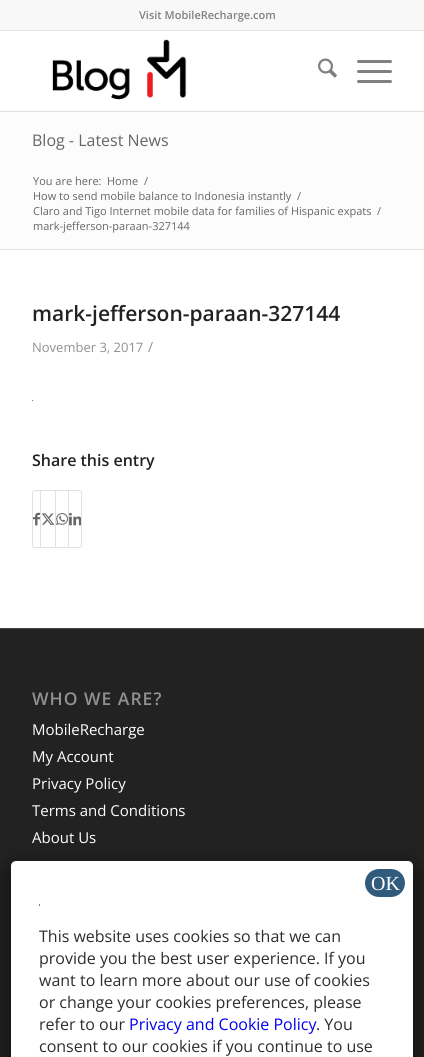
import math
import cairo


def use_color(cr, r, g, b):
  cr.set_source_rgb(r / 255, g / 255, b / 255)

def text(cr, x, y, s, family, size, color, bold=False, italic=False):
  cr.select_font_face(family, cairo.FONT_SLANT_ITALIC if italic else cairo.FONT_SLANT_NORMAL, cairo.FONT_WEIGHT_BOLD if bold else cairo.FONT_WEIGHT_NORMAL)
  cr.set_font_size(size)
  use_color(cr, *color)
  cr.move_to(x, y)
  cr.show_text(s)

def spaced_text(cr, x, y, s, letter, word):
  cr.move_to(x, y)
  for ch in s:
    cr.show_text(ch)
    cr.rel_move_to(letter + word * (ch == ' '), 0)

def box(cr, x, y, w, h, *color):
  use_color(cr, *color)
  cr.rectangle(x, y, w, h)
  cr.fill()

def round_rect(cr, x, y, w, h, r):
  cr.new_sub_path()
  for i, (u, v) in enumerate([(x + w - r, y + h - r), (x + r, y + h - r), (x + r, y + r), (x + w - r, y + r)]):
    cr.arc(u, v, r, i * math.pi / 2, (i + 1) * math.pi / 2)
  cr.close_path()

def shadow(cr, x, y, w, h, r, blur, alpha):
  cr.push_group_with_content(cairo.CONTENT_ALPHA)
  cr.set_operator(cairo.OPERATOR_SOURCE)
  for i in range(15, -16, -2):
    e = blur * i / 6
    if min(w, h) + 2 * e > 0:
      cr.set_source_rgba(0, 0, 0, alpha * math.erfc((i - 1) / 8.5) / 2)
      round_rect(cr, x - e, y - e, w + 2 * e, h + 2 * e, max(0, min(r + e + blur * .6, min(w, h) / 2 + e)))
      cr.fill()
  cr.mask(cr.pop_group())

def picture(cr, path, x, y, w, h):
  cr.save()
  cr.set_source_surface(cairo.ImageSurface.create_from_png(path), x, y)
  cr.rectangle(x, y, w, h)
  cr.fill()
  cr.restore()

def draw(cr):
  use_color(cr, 255, 255, 255)
  cr.paint()
  box(cr, 0, 0, 424, 30, 248, 248, 248)
  box(cr, 0, 30, 424, 1, 225, 225, 225)
  box(cr, 0, 111, 424, 1, 225, 225, 225)
  picture(cr, "img_01.png", 52, 39, 135, 61)
  picture(cr, "img_02.png", 318, 58, 19, 20)
  use_color(cr, 128, 128, 128)
  round_rect(cr, 357, 70, 35, 3, 1.5)
  cr.fill()
  round_rect(cr, 357, 60, 35, 3, 1.5)
  cr.fill()
  round_rect(cr, 357, 80, 35, 3, 1.5)
  cr.fill()
  box(cr, 0, 112, 424, 137, 252, 252, 252)
  box(cr, 0, 249, 424, 1, 225, 225, 225)
  box(cr, 32, 400, 1, 1, 126, 123, 114)
  round_rect(cr, 32.5, 490.5, 49, 57, 2.5)
  use_color(cr, 225, 225, 225)
  cr.set_line_width(1)
  cr.stroke()
  picture(cr, "img_03.png", 33, 512, 7, 14)
  box(cr, 40, 491, 1, 56, 225, 225, 225)
  picture(cr, "img_04.png", 41, 513, 14, 12)
  box(cr, 55, 491, 1, 56, 225, 225, 225)
  picture(cr, "img_05.png", 56, 513, 12, 13)
  box(cr, 68, 491, 1, 56, 225, 225, 225)
  picture(cr, "img_06.png", 69, 512, 12, 14)
  box(cr, 0, 629, 424, 428, 34, 34, 34)
  box(cr, 0, 628, 424, 1, 68, 68, 68)
  use_color(cr, 2, 2, 2)
  shadow(cr, 7, 867, 410, 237, 9, 12.5, 0.5)
  use_color(cr, 255, 255, 255)
  round_rect(cr, 11, 861, 402, 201, 5)
  cr.fill()
  use_color(cr, 49, 91, 124)
  round_rect(cr, 365, 869, 40, 28, 14)
  cr.fill()
  picture(cr, "img_07.png", 39, 904, 1, 2)
  text(cr, 139, 19, "Visit MobileRecharge.com", "Open Sans SemiBold", 11, (128, 128, 128))
  text(cr, 32, 146, "Blog - Latest News", "Open Sans", 16, (102, 102, 102))
  text(cr, 33, 185, "You are here:", "Open Sans", 11, (102, 102, 102))
  text(cr, 107, 185, "Home", "Open Sans", 11, (102, 102, 102))
  text(cr, 144, 185, "/", "Open Sans", 11, (102, 102, 102))
  text(cr, 33, 200, "How to send mobile balance to Indonesia instantly", "Open Sans", 11, (102, 102, 102))
  text(cr, 297, 200, "/", "Open Sans", 11, (102, 102, 102))
  text(cr, 33, 215, "Claro and Tigo Internet mobile data for families of Hispanic expats", "Open Sans", 11, (102, 102, 102))
  text(cr, 377, 215, "/", "Open Sans", 11, (102, 102, 102))
  text(cr, 33, 230, "mark-jefferson-paraan-327144", "Open Sans", 11, (102, 102, 102))
  text(cr, 32, 321, "mark-jefferson-paraan-327144", "Open Sans SemiBold", 21, (34, 34, 34))
  text(cr, 32, 352, "November 3, 2017", "Open Sans", 13, (145, 145, 145))
  text(cr, 148, 352, "/", "Open Sans", 14, (145, 145, 145))
  text(cr, 32, 466, "Share this entry", "Open Sans SemiBold", 16, (34, 34, 34))
  cr.set_font_size(17.5)
  use_color(cr, 145, 145, 145)
  spaced_text(cr, 32, 705, "WHO WE ARE?", 1, 0)
  text(cr, 32, 735, "MobileRecharge", "Open Sans", 15, (255, 255, 255))
  text(cr, 32, 762, "My Account", "Open Sans", 15, (255, 255, 255))
  text(cr, 32, 789, "Privacy Policy", "Open Sans", 15, (255, 255, 255))
  text(cr, 32, 816, "Terms and Conditions", "Open Sans", 15, (255, 255, 255))
  text(cr, 32, 843, "About Us", "Open Sans", 15, (255, 255, 255))
  text(cr, 371, 890, "OK", "Liberation Serif", 20, (255, 255, 255))
  text(cr, 39, 942, "This website uses cookies so that we can", "Open Sans", 16, (45, 45, 45))
  text(cr, 39, 964, "provide you the best user experience. If you", "Open Sans", 16, (45, 45, 45))
  text(cr, 39, 986, "want to learn more about our use of cookies", "Open Sans", 16, (45, 45, 45))
  text(cr, 39, 1008, "or change your cookies preferences, please", "Open Sans", 16, (45, 45, 45))
  text(cr, 39, 1030, "refer to our", "Open Sans", 16, (45, 45, 45))
  text(cr, 129, 1030, "Privacy and Cookie Policy", "Open Sans", 16, (0, 0, 238))
  text(cr, 316, 1030, ". You", "Open Sans", 16, (45, 45, 45))
  text(cr, 39, 1052, "consent to our cookies if you continue to use", "Open Sans", 16, (45, 45, 45))


surface = cairo.ImageSurface(cairo.FORMAT_RGB24, 424, 1057)
cr = cairo.Context(surface)
options = cairo.FontOptions()
options.set_hint_metrics(cairo.HINT_METRICS_OFF)
options.set_hint_style(cairo.HINT_STYLE_NONE)
cr.set_font_options(options)
cr.set_miter_limit(4)
draw(cr)
surface.write_to_png("out.png")
